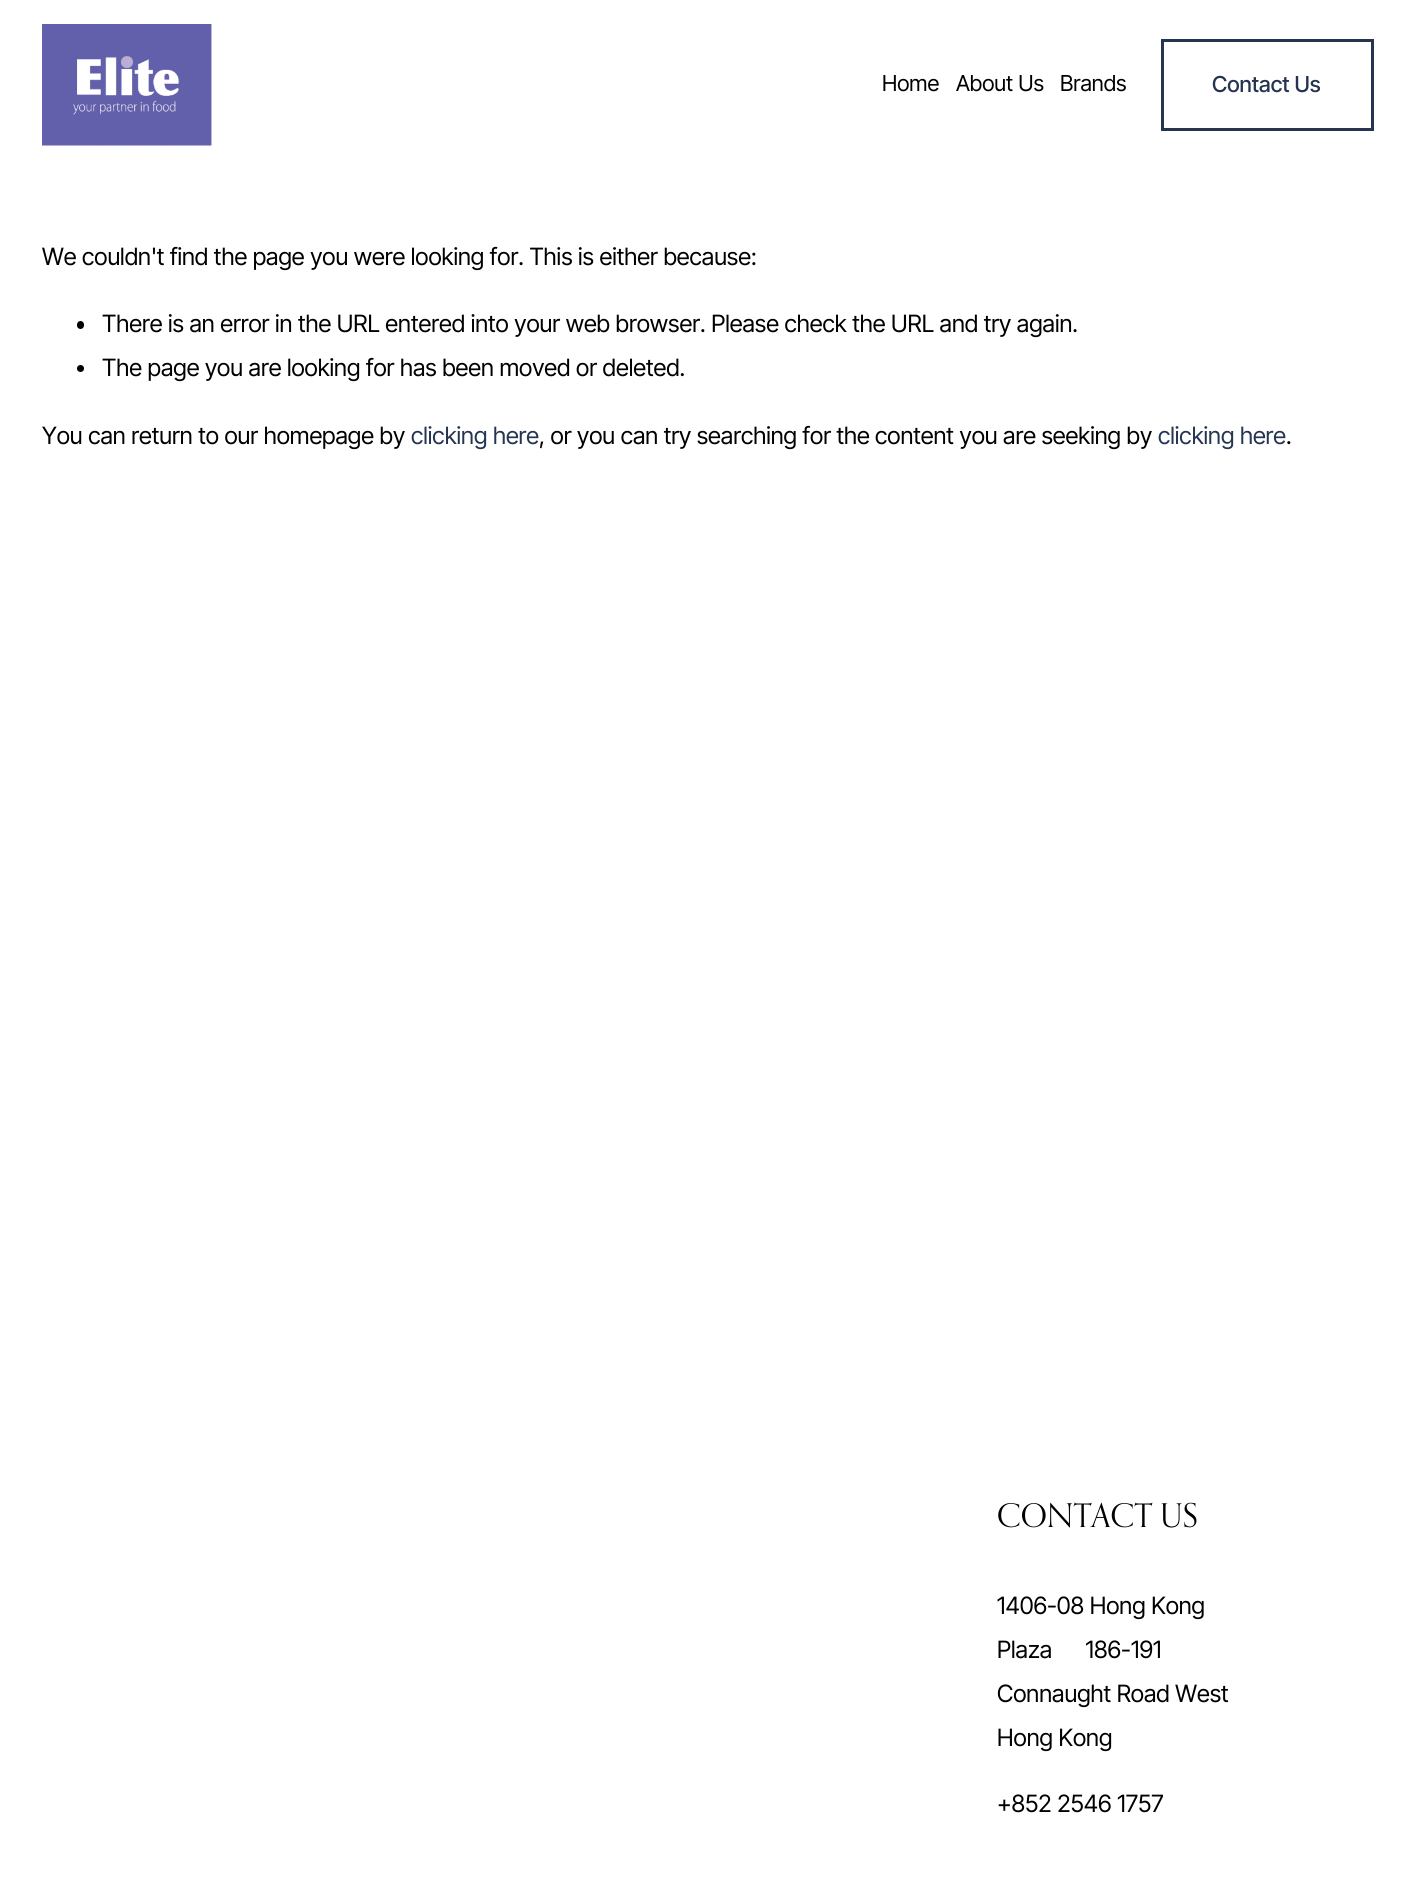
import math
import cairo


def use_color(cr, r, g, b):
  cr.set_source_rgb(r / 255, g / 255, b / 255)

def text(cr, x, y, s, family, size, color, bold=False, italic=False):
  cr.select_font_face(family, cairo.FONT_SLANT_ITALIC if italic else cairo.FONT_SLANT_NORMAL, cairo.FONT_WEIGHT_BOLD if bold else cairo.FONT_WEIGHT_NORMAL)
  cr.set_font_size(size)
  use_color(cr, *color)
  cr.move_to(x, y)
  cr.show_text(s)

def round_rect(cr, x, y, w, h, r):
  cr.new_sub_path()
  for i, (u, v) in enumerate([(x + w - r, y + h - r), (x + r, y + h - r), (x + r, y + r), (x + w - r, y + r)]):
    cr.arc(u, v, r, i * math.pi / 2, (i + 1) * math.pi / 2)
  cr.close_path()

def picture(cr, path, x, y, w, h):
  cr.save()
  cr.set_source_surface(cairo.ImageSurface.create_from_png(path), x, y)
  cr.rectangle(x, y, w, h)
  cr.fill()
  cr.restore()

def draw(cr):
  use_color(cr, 255, 255, 255)
  cr.paint()
  picture(cr, "img_01.png", 42, 24, 170, 122)
  cr.rectangle(1162.5, 40.5, 210, 89)
  use_color(cr, 37, 53, 81)
  cr.set_line_width(3)
  cr.stroke()
  use_color(cr, 0, 0, 0)
  round_rect(cr, 77, 321, 7, 8, 3.5)
  cr.fill()
  cr.arc(80.5, 368.5, 3.5, 0, 2 * math.pi)
  cr.fill()
  text(cr, 882, 91, "Home", "Inter Tight", 22, (0, 0, 0))
  text(cr, 956, 91, "About Us", "Inter Tight", 22, (0, 0, 0))
  text(cr, 1060, 91, "Brands", "Inter Tight", 22, (0, 0, 0))
  text(cr, 1212, 92, "Contact Us", "Inter Tight Medium", 22, (37, 53, 81))
  text(cr, 42, 265, "We couldn't find the page you were looking for. This is either because:", "Inter Tight", 23.85, (0, 0, 0))
  text(cr, 102, 332, "There is an error in the URL entered into your web browser. Please check the URL and try again.", "Inter Tight", 23.85, (0, 0, 0))
  text(cr, 102, 376, "The page you are looking for has been moved or deleted.", "Inter Tight", 23.85, (0, 0, 0))
  text(cr, 42, 444, "You can return to our homepage by", "Inter Tight", 23.85, (0, 0, 0))
  text(cr, 411, 444, "clicking here", "Inter Tight", 23.85, (37, 53, 81))
  text(cr, 539, 444, ", or you can try searching for the", "Inter Tight", 23.85, (0, 0, 0))
  text(cr, 875, 444, "content you are seeking by", "Inter Tight", 23.85, (0, 0, 0))
  text(cr, 1158, 444, "clicking here", "Inter Tight", 23.85, (37, 53, 81))
  text(cr, 1286, 444, ".", "Inter Tight", 23.85, (0, 0, 0))
  text(cr, 997, 1527, "CONTACT US", "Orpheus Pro", 32.75, (0, 0, 0))
  text(cr, 997, 1614, "1406-08 Hong Kong", "Inter Tight", 23.85, (0, 0, 0))
  text(cr, 997, 1658, "Plaza      186-191", "Inter Tight", 23.85, (0, 0, 0))
  text(cr, 997, 1702, "Connaught Road West", "Inter Tight", 23.85, (0, 0, 0))
  text(cr, 997, 1746, "Hong Kong", "Inter Tight", 23.85, (0, 0, 0))
  text(cr, 997, 1812, "+852 2546 1757", "Inter Tight", 23.85, (0, 0, 0))


surface = cairo.ImageSurface(cairo.FORMAT_RGB24, 1415, 1890)
cr = cairo.Context(surface)
options = cairo.FontOptions()
options.set_hint_metrics(cairo.HINT_METRICS_OFF)
options.set_hint_style(cairo.HINT_STYLE_NONE)
cr.set_font_options(options)
cr.set_miter_limit(4)
draw(cr)
surface.write_to_png("out.png")
